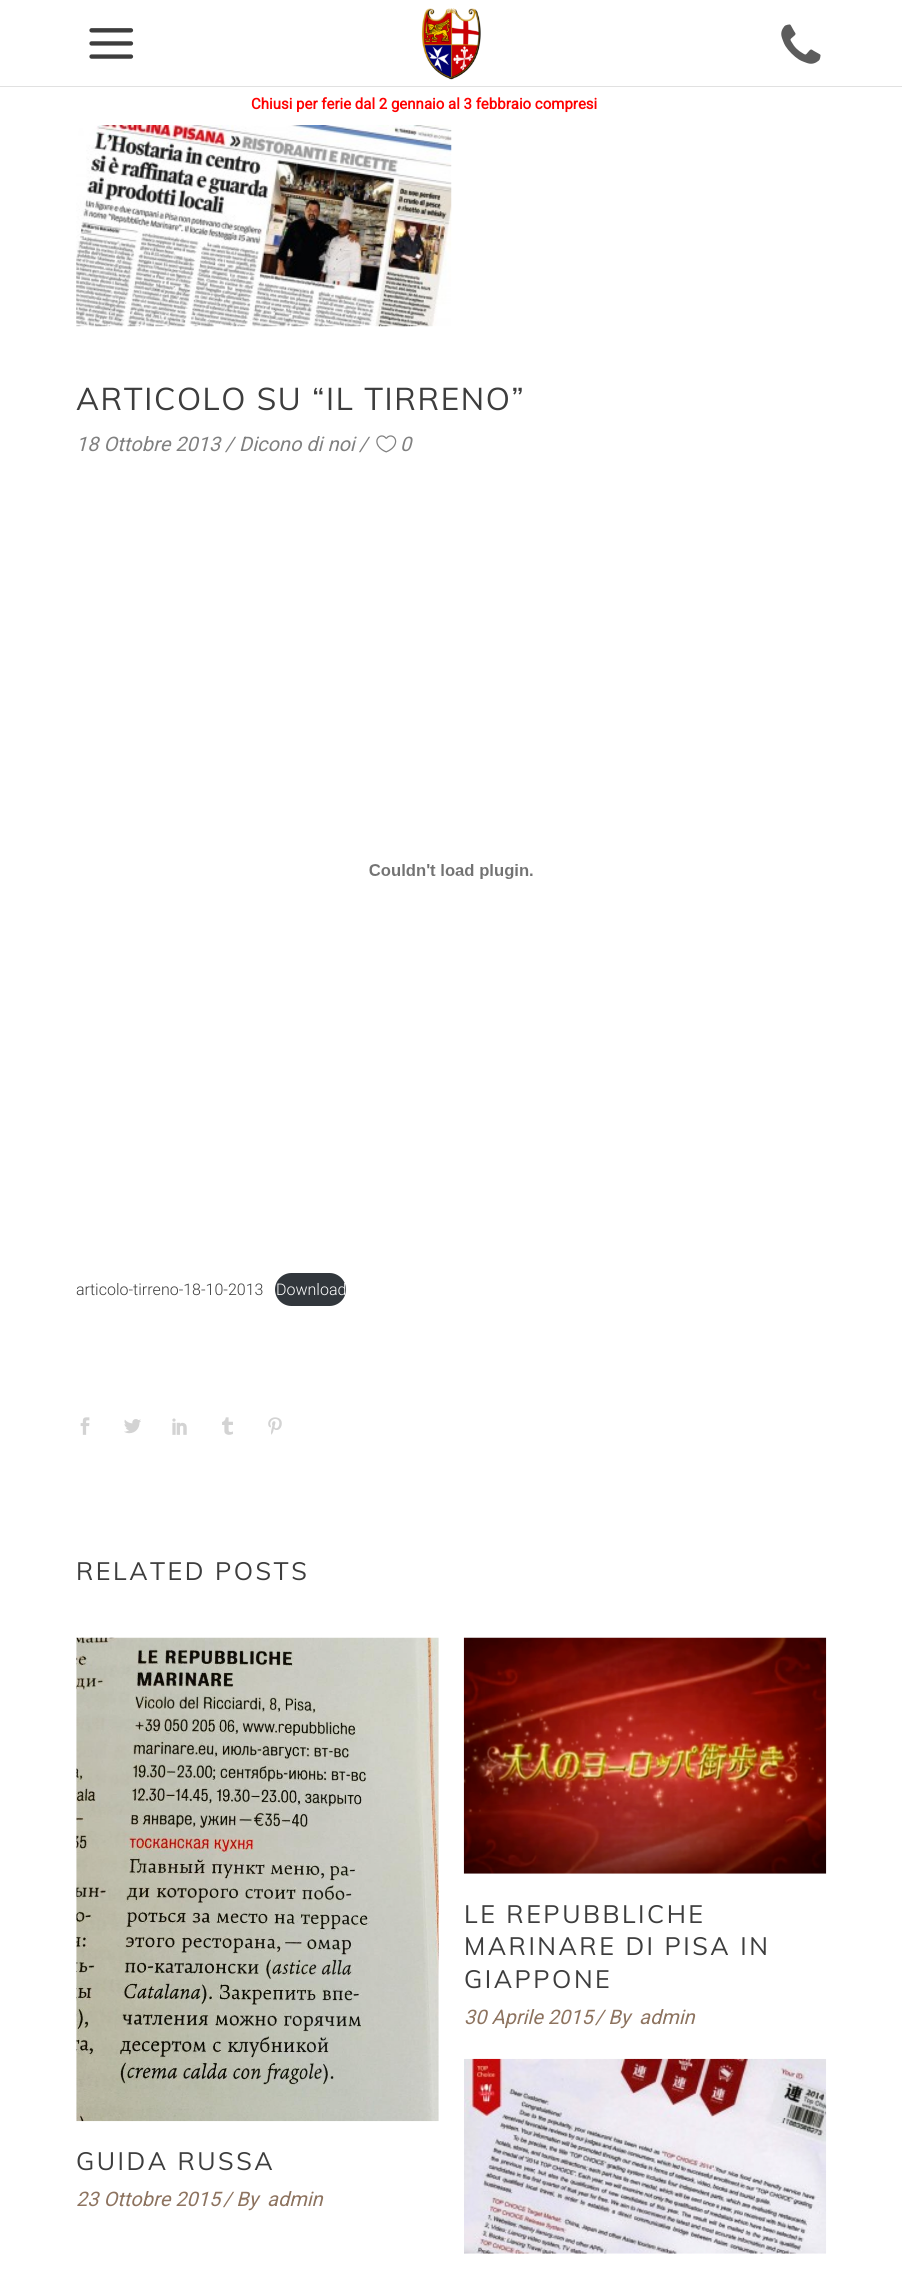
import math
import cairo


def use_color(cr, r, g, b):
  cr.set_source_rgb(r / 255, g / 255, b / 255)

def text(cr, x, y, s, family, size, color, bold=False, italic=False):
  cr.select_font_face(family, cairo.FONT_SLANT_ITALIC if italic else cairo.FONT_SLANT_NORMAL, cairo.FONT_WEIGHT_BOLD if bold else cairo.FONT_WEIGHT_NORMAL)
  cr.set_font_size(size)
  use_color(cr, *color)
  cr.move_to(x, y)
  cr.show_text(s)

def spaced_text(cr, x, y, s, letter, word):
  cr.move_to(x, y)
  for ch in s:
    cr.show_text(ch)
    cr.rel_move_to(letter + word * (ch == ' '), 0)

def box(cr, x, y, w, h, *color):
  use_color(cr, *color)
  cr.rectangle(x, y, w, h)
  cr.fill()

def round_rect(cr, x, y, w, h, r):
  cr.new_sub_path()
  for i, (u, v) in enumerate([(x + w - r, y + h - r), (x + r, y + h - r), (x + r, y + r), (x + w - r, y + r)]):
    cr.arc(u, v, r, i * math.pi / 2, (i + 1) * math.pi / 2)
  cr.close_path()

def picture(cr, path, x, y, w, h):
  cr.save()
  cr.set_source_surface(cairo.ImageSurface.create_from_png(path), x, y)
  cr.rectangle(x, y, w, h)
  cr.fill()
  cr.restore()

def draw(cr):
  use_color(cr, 255, 255, 255)
  cr.paint()
  box(cr, 0, 86, 902, 1, 225, 225, 225)
  picture(cr, "img_01.png", 89, 28, 45, 31)
  picture(cr, "img_02.png", 421, 8, 60, 72)
  picture(cr, "img_03.png", 781, 24, 40, 40)
  picture(cr, "img_04.png", 76, 125, 376, 202)
  picture(cr, "img_05.png", 376, 435, 21, 18)
  picture(cr, "img_06.png", 369, 864, 164, 15)
  use_color(cr, 50, 55, 60)
  round_rect(cr, 275, 1273, 71, 33, 16.5)
  cr.fill()
  picture(cr, "img_07.png", 80, 1417, 10, 18)
  picture(cr, "img_08.png", 124, 1419, 17, 15)
  picture(cr, "img_09.png", 172, 1418, 15, 17)
  picture(cr, "img_10.png", 222, 1417, 11, 18)
  picture(cr, "img_11.png", 268, 1417, 14, 18)
  picture(cr, "img_12.png", 463, 1637, 364, 237)
  picture(cr, "img_13.png", 76, 1637, 363, 485)
  picture(cr, "img_14.png", 464, 2058, 363, 196)
  text(cr, 251, 109, "Chiusi per ferie dal 2 gennaio al 3 febbraio compresi", "Roboto", 15, (255, 0, 0), bold=True)
  cr.select_font_face("Muli")
  cr.set_font_size(31.25)
  use_color(cr, 61, 61, 61)
  spaced_text(cr, 76, 410, "ARTICOLO SU “IL TIRRENO”", 1.6, 0)
  text(cr, 76, 451, "18 Ottobre 2013", "Roboto", 20, (128, 128, 128), italic=True)
  text(cr, 225, 451, "/", "Roboto", 20, (128, 128, 128), italic=True)
  text(cr, 239, 451, "Dicono di noi", "Roboto", 20, (128, 128, 128), italic=True)
  text(cr, 359, 451, "/", "Roboto", 20, (128, 128, 128), italic=True)
  text(cr, 400, 451, "0", "Roboto", 20, (128, 128, 128), italic=True)
  text(cr, 76, 1295, "articolo-tirreno-18-10-2013", "Roboto Light", 16, (61, 61, 61))
  text(cr, 276, 1295, "Download", "Roboto Light", 16, (255, 255, 255))
  cr.select_font_face("Muli")
  cr.set_font_size(25)
  use_color(cr, 61, 61, 61)
  spaced_text(cr, 76, 1580, "RELATED POSTS", 2.5, 0)
  spaced_text(cr, 464, 1923, "LE REPUBBLICHE", 2.5, 0)
  spaced_text(cr, 464, 1955, "MARINARE DI PISA IN", 2.5, 0)
  spaced_text(cr, 464, 1988, "GIAPPONE", 2.5, 0)
  text(cr, 464, 2024, "30 Aprile 2015", "Roboto", 20, (141, 115, 95), italic=True)
  text(cr, 595, 2024, "/ By", "Roboto", 20, (141, 115, 95), italic=True)
  text(cr, 639, 2024, "admin", "Roboto", 20, (141, 115, 95), italic=True)
  cr.select_font_face("Muli")
  cr.set_font_size(25)
  use_color(cr, 61, 61, 61)
  spaced_text(cr, 76, 2170, "GUIDA RUSSA", 2.5, 0)
  text(cr, 76, 2206, "23 Ottobre 2015", "Roboto", 20, (141, 115, 95), italic=True)
  text(cr, 223, 2206, "/ By", "Roboto", 20, (141, 115, 95), italic=True)
  text(cr, 267, 2206, "admin", "Roboto", 20, (141, 115, 95), italic=True)


surface = cairo.ImageSurface(cairo.FORMAT_RGB24, 902, 2284)
cr = cairo.Context(surface)
options = cairo.FontOptions()
options.set_hint_metrics(cairo.HINT_METRICS_OFF)
options.set_hint_style(cairo.HINT_STYLE_NONE)
cr.set_font_options(options)
cr.set_miter_limit(4)
draw(cr)
surface.write_to_png("out.png")
